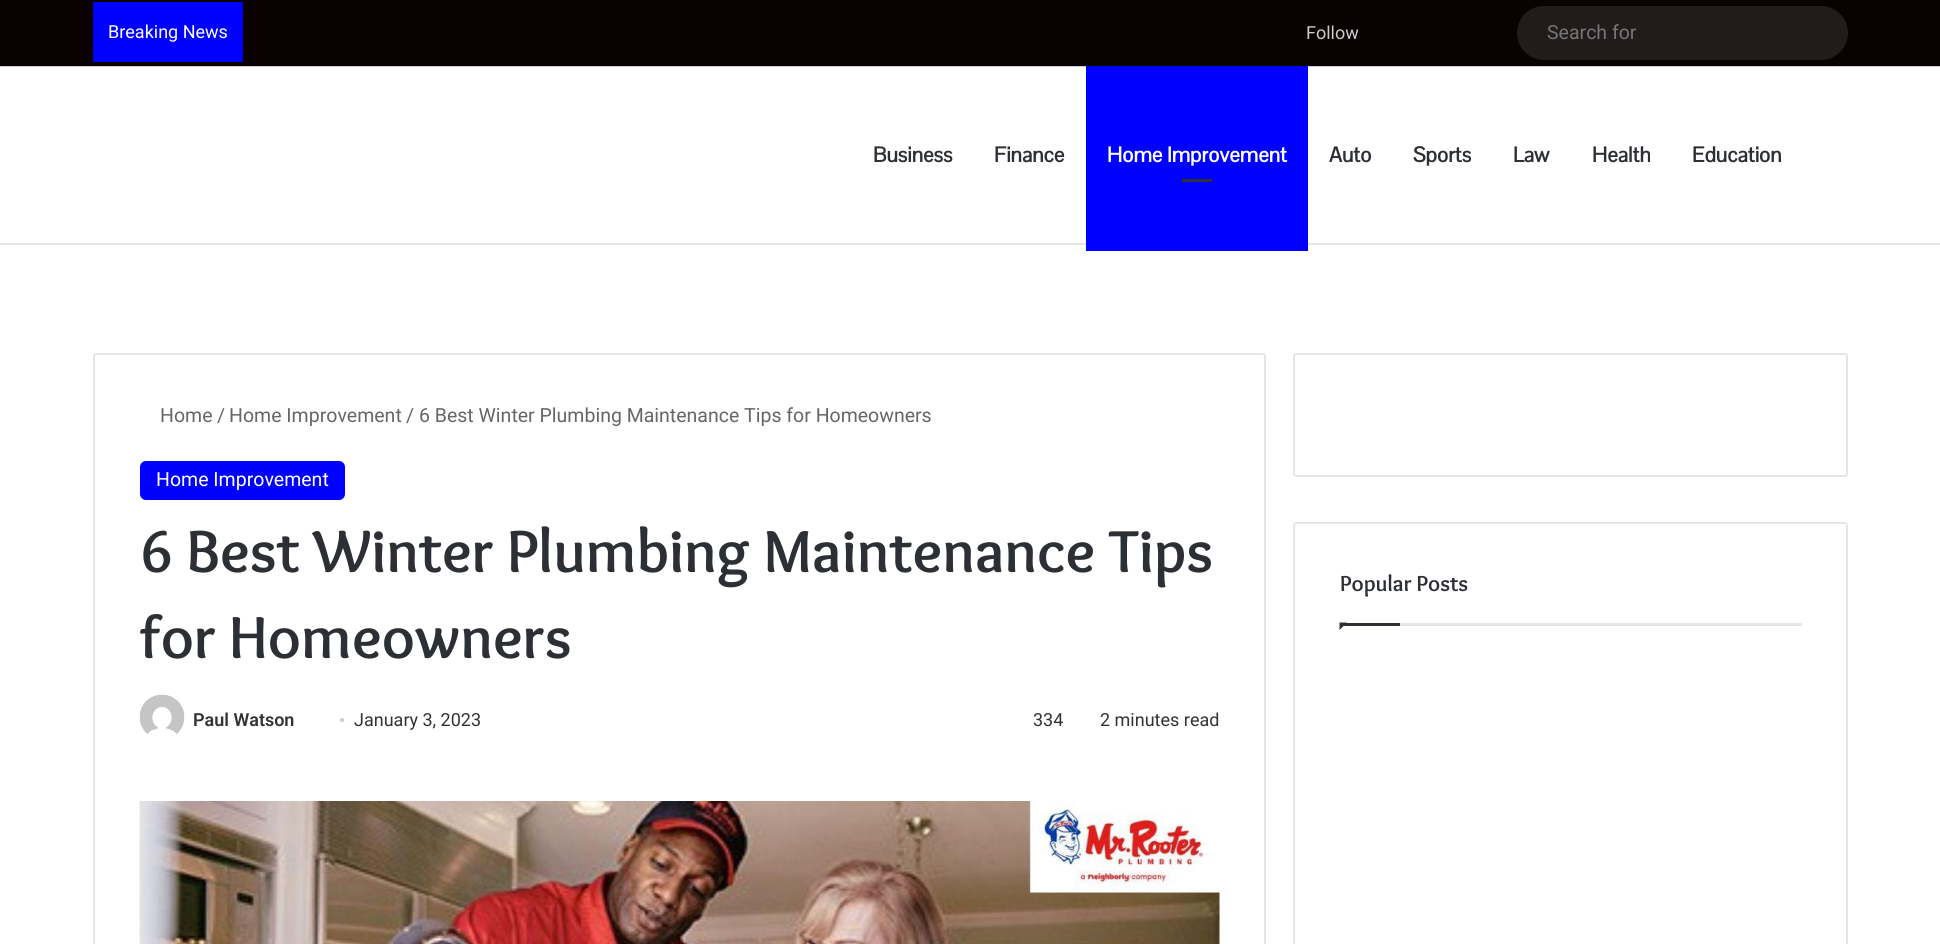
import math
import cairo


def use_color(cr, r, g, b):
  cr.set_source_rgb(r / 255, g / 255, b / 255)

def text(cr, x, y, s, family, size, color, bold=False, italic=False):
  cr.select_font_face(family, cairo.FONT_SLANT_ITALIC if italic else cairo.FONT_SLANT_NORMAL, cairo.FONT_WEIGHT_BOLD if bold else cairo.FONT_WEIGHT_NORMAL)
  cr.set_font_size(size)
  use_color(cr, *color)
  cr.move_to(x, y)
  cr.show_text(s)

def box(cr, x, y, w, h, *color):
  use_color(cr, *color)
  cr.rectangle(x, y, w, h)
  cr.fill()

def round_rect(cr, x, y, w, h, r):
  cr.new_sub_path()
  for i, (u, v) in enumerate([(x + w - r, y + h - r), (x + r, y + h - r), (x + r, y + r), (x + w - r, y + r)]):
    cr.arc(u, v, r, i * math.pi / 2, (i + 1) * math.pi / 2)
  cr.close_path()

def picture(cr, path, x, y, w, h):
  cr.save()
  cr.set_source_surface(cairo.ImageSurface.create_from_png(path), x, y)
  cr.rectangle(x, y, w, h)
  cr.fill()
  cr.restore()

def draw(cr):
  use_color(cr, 255, 255, 255)
  cr.paint()
  box(cr, 0, 0, 1940, 65, 10, 2, 2)
  box(cr, 0, 65, 1940, 1, 9, 2, 2)
  box(cr, 93, 2, 150, 60, 0, 0, 255)
  use_color(cr, 35, 27, 27)
  round_rect(cr, 1517, 6, 331, 54, 27)
  cr.fill()
  box(cr, 0, 66, 1940, 1, 207, 207, 207)
  box(cr, 0, 243, 1940, 2, 230, 230, 230)
  box(cr, 1086, 67, 222, 184, 0, 0, 255)
  box(cr, 1086, 66, 222, 1, 0, 0, 230)
  box(cr, 1182, 179, 30, 3, 44, 47, 52)
  round_rect(cr, 94, 354, 1171, 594, 2)
  use_color(cr, 230, 230, 230)
  cr.stroke()
  use_color(cr, 0, 0, 255)
  round_rect(cr, 140, 461, 205, 39, 6)
  cr.fill()
  picture(cr, "img_01.png", 139, 694, 46, 40)
  picture(cr, "img_02.png", 139, 801, 1081, 143)
  round_rect(cr, 1294, 354, 553, 122, 2)
  use_color(cr, 230, 230, 230)
  cr.stroke()
  round_rect(cr, 1294, 523, 553, 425, 2)
  cr.stroke()
  box(cr, 1400, 623, 402, 3, 230, 230, 230)
  use_color(cr, 44, 47, 52)
  cr.new_path()
  cr.move_to(1339.5, 622.5)
  cr.line_to(1347, 622.5)
  cr.line_to(1339.5, 630)
  cr.close_path()
  cr.fill()
  box(cr, 1340, 623, 60, 3, 44, 47, 52)
  text(cr, 108, 38, "Breaking News", "Roboto", 18, (255, 255, 255))
  text(cr, 1306, 39, "Follow", "Roboto", 18, (204, 204, 204))
  text(cr, 1547, 39, "Search for", "Roboto", 19.5, (117, 117, 117))
  text(cr, 873, 162, "Business", "Pontano Sans", 21, (44, 47, 52), bold=True)
  text(cr, 994, 162, "Finance", "Pontano Sans", 21, (44, 47, 52), bold=True)
  text(cr, 1107, 162, "Home Improvement", "Pontano Sans", 21, (255, 255, 255), bold=True)
  text(cr, 1329, 162, "Auto", "Pontano Sans", 21, (44, 47, 52), bold=True)
  text(cr, 1413, 162, "Sports", "Pontano Sans", 21, (44, 47, 52), bold=True)
  text(cr, 1513, 162, "Law", "Pontano Sans", 21, (44, 47, 52), bold=True)
  text(cr, 1592, 162, "Health", "Pontano Sans", 21, (44, 47, 52), bold=True)
  text(cr, 1692, 162, "Education", "Pontano Sans", 21, (44, 47, 52), bold=True)
  text(cr, 160, 422, "Home", "Roboto", 19.5, (102, 102, 102))
  text(cr, 217, 422, "/", "Roboto", 19.5, (102, 102, 102))
  text(cr, 229, 422, "Home Improvement", "Roboto", 19.5, (102, 102, 102))
  text(cr, 406, 422, "/", "Roboto", 19.5, (102, 102, 102))
  text(cr, 419, 422, "6 Best Winter Plumbing Maintenance Tips for Homeowners", "Roboto", 19.5, (102, 102, 102))
  text(cr, 156, 486, "Home Improvement", "Roboto", 19.5, (255, 255, 255))
  text(cr, 140, 572, "6 Best Winter Plumbing Maintenance Tips", "Overlock", 61.5, (44, 47, 52), bold=True)
  text(cr, 140, 658, "for Homeowners", "Overlock", 61.5, (44, 47, 52), bold=True)
  text(cr, 193, 726, "Paul Watson", "Roboto SemiBold", 18, (51, 51, 51))
  text(cr, 339, 726, "•", "Liberation Serif", 18, (204, 204, 204))
  text(cr, 354, 726, "January 3, 2023", "Roboto", 18, (51, 51, 51))
  text(cr, 1033, 726, "334", "Roboto", 18, (51, 51, 51))
  text(cr, 1100, 726, "2 minutes read", "Roboto", 18, (51, 51, 51))
  text(cr, 1340, 591, "Popular Posts", "Overlock", 22.5, (44, 47, 52), bold=True)


surface = cairo.ImageSurface(cairo.FORMAT_RGB24, 1940, 944)
cr = cairo.Context(surface)
options = cairo.FontOptions()
options.set_hint_metrics(cairo.HINT_METRICS_OFF)
options.set_hint_style(cairo.HINT_STYLE_NONE)
cr.set_font_options(options)
cr.set_miter_limit(4)
draw(cr)
surface.write_to_png("out.png")
